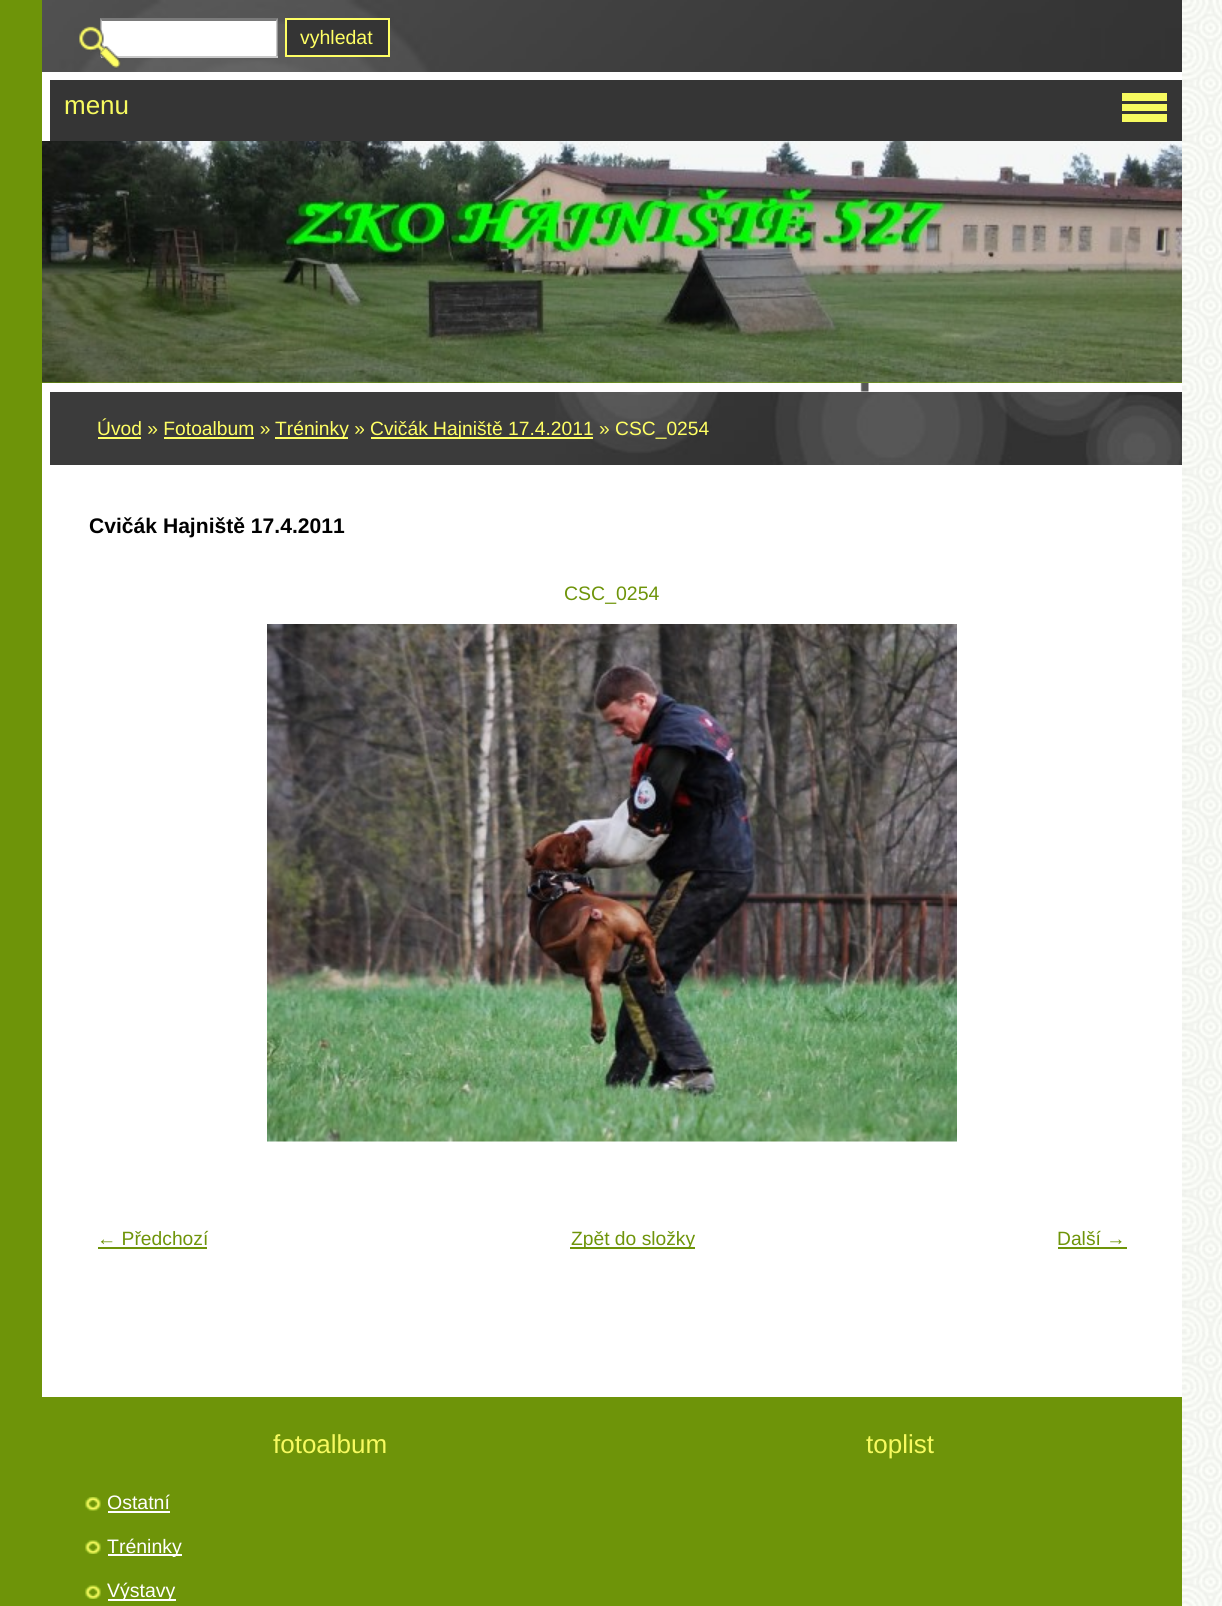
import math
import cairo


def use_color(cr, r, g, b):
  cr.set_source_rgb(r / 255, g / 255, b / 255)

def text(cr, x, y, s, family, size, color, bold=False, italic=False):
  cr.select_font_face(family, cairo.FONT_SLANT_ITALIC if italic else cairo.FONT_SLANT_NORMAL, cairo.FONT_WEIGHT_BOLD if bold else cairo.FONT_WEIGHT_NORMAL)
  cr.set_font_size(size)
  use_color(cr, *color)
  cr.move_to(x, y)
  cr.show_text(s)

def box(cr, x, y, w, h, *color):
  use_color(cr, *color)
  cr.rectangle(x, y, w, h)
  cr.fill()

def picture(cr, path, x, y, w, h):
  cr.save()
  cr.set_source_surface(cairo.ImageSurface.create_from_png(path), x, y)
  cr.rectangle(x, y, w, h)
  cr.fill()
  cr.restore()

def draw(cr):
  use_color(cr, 110, 148, 9)
  cr.paint()
  picture(cr, "img_01.png", 1182, 0, 40, 1606)
  picture(cr, "img_02.png", 42, 0, 1140, 72)
  box(cr, 42, 72, 1140, 8, 255, 255, 255)
  box(cr, 50, 80, 1132, 61, 53, 53, 53)
  box(cr, 42, 80, 8, 61, 255, 255, 255)
  box(cr, 102, 21, 174, 35, 255, 255, 255)
  use_color(cr, 122, 122, 122)
  cr.new_path()
  cr.move_to(100, 18)
  cr.line_to(278, 18)
  cr.line_to(276, 21)
  cr.line_to(102, 21)
  cr.close_path()
  cr.fill()
  use_color(cr, 201, 201, 201)
  cr.new_path()
  cr.move_to(277.5, 18)
  cr.line_to(277.5, 57)
  cr.line_to(276, 55.5)
  cr.line_to(276, 21)
  cr.close_path()
  cr.fill()
  box(cr, 101, 56, 177, 2, 201, 201, 201)
  cr.new_path()
  cr.move_to(100.5, 57)
  cr.line_to(100.5, 18)
  cr.line_to(102, 21)
  cr.line_to(102, 55.5)
  cr.close_path()
  cr.fill()
  picture(cr, "img_03.png", 79, 26, 42, 43)
  use_color(cr, 52, 52, 52)
  cr.rectangle(286, 19, 103, 37)
  cr.fill_preserve()
  use_color(cr, 255, 255, 100)
  cr.stroke()
  picture(cr, "img_04.png", 85, 1497, 16, 14)
  box(cr, 108, 1511, 62, 2, 255, 255, 255)
  picture(cr, "img_05.png", 85, 1540, 16, 14)
  box(cr, 108, 1554, 74, 2, 255, 255, 255)
  picture(cr, "img_05.png", 85, 1585, 16, 14)
  box(cr, 108, 1599, 68, 2, 255, 255, 255)
  box(cr, 42, 465, 1140, 932, 255, 255, 255)
  box(cr, 50, 392, 505, 73, 59, 59, 59)
  picture(cr, "img_06.png", 555, 392, 627, 73)
  box(cr, 42, 392, 8, 73, 255, 255, 255)
  box(cr, 98, 437, 43, 2, 255, 255, 100)
  box(cr, 275, 437, 73, 2, 255, 255, 100)
  box(cr, 371, 437, 222, 2, 255, 255, 100)
  box(cr, 164, 437, 90, 2, 255, 255, 100)
  picture(cr, "img_07.png", 267, 624, 690, 518)
  box(cr, 98, 1247, 109, 2, 110, 148, 9)
  box(cr, 570, 1247, 125, 2, 110, 148, 9)
  box(cr, 1058, 1247, 69, 2, 110, 148, 9)
  box(cr, 1122, 93, 45, 8, 247, 250, 95)
  box(cr, 1122, 104, 45, 7, 247, 250, 95)
  box(cr, 1122, 114, 45, 8, 247, 250, 95)
  box(cr, 42, 391, 1140, 1, 255, 255, 255)
  picture(cr, "img_08.png", 42, 383, 1140, 9)
  box(cr, 42, 382, 1140, 1, 123, 169, 8)
  picture(cr, "img_09.png", 42, 141, 1140, 242)
  text(cr, 64, 114, "menu", "Liberation Sans", 26, (247, 250, 95))
  text(cr, 300, 44, "vyhledat", "Liberation Sans", 19.5, (255, 255, 100))
  text(cr, 273, 1453, "fotoalbum", "Liberation Sans", 26, (247, 250, 95))
  text(cr, 107, 1509, "Ostatní", "Liberation Sans", 19.5, (255, 255, 255))
  text(cr, 107, 1553, "Tréninky", "Liberation Sans", 19.5, (255, 255, 255))
  text(cr, 107, 1597, "Výstavy", "Liberation Sans", 19.5, (255, 255, 255))
  text(cr, 866, 1453, "toplist", "Liberation Sans", 26, (247, 250, 95))
  text(cr, 97, 435, "Úvod » Fotoalbum »", "Liberation Sans", 19.25, (255, 255, 100))
  text(cr, 275, 435, "Tréninky »", "Liberation Sans", 19.25, (255, 255, 100))
  text(cr, 370, 435, "Cvičák Hajniště 17.4.2011 » CSC_0254", "Liberation Sans", 19.25, (255, 255, 100))
  text(cr, 89, 533, "Cvičák Hajniště 17.4.2011", "Liberation Sans", 21.1, (0, 0, 0), bold=True)
  text(cr, 564, 600, "CSC_0254", "Liberation Sans", 19.5, (110, 148, 9))
  text(cr, 97, 1245, "← Předchozí", "Liberation Sans", 19.25, (110, 148, 9))
  text(cr, 571, 1245, "Zpět do složky", "Liberation Sans", 19.25, (110, 148, 9))
  text(cr, 1057, 1245, "Další →", "Liberation Sans", 19.25, (110, 148, 9))


surface = cairo.ImageSurface(cairo.FORMAT_RGB24, 1222, 1606)
cr = cairo.Context(surface)
options = cairo.FontOptions()
options.set_hint_metrics(cairo.HINT_METRICS_OFF)
options.set_hint_style(cairo.HINT_STYLE_NONE)
cr.set_font_options(options)
cr.set_miter_limit(4)
draw(cr)
surface.write_to_png("out.png")
